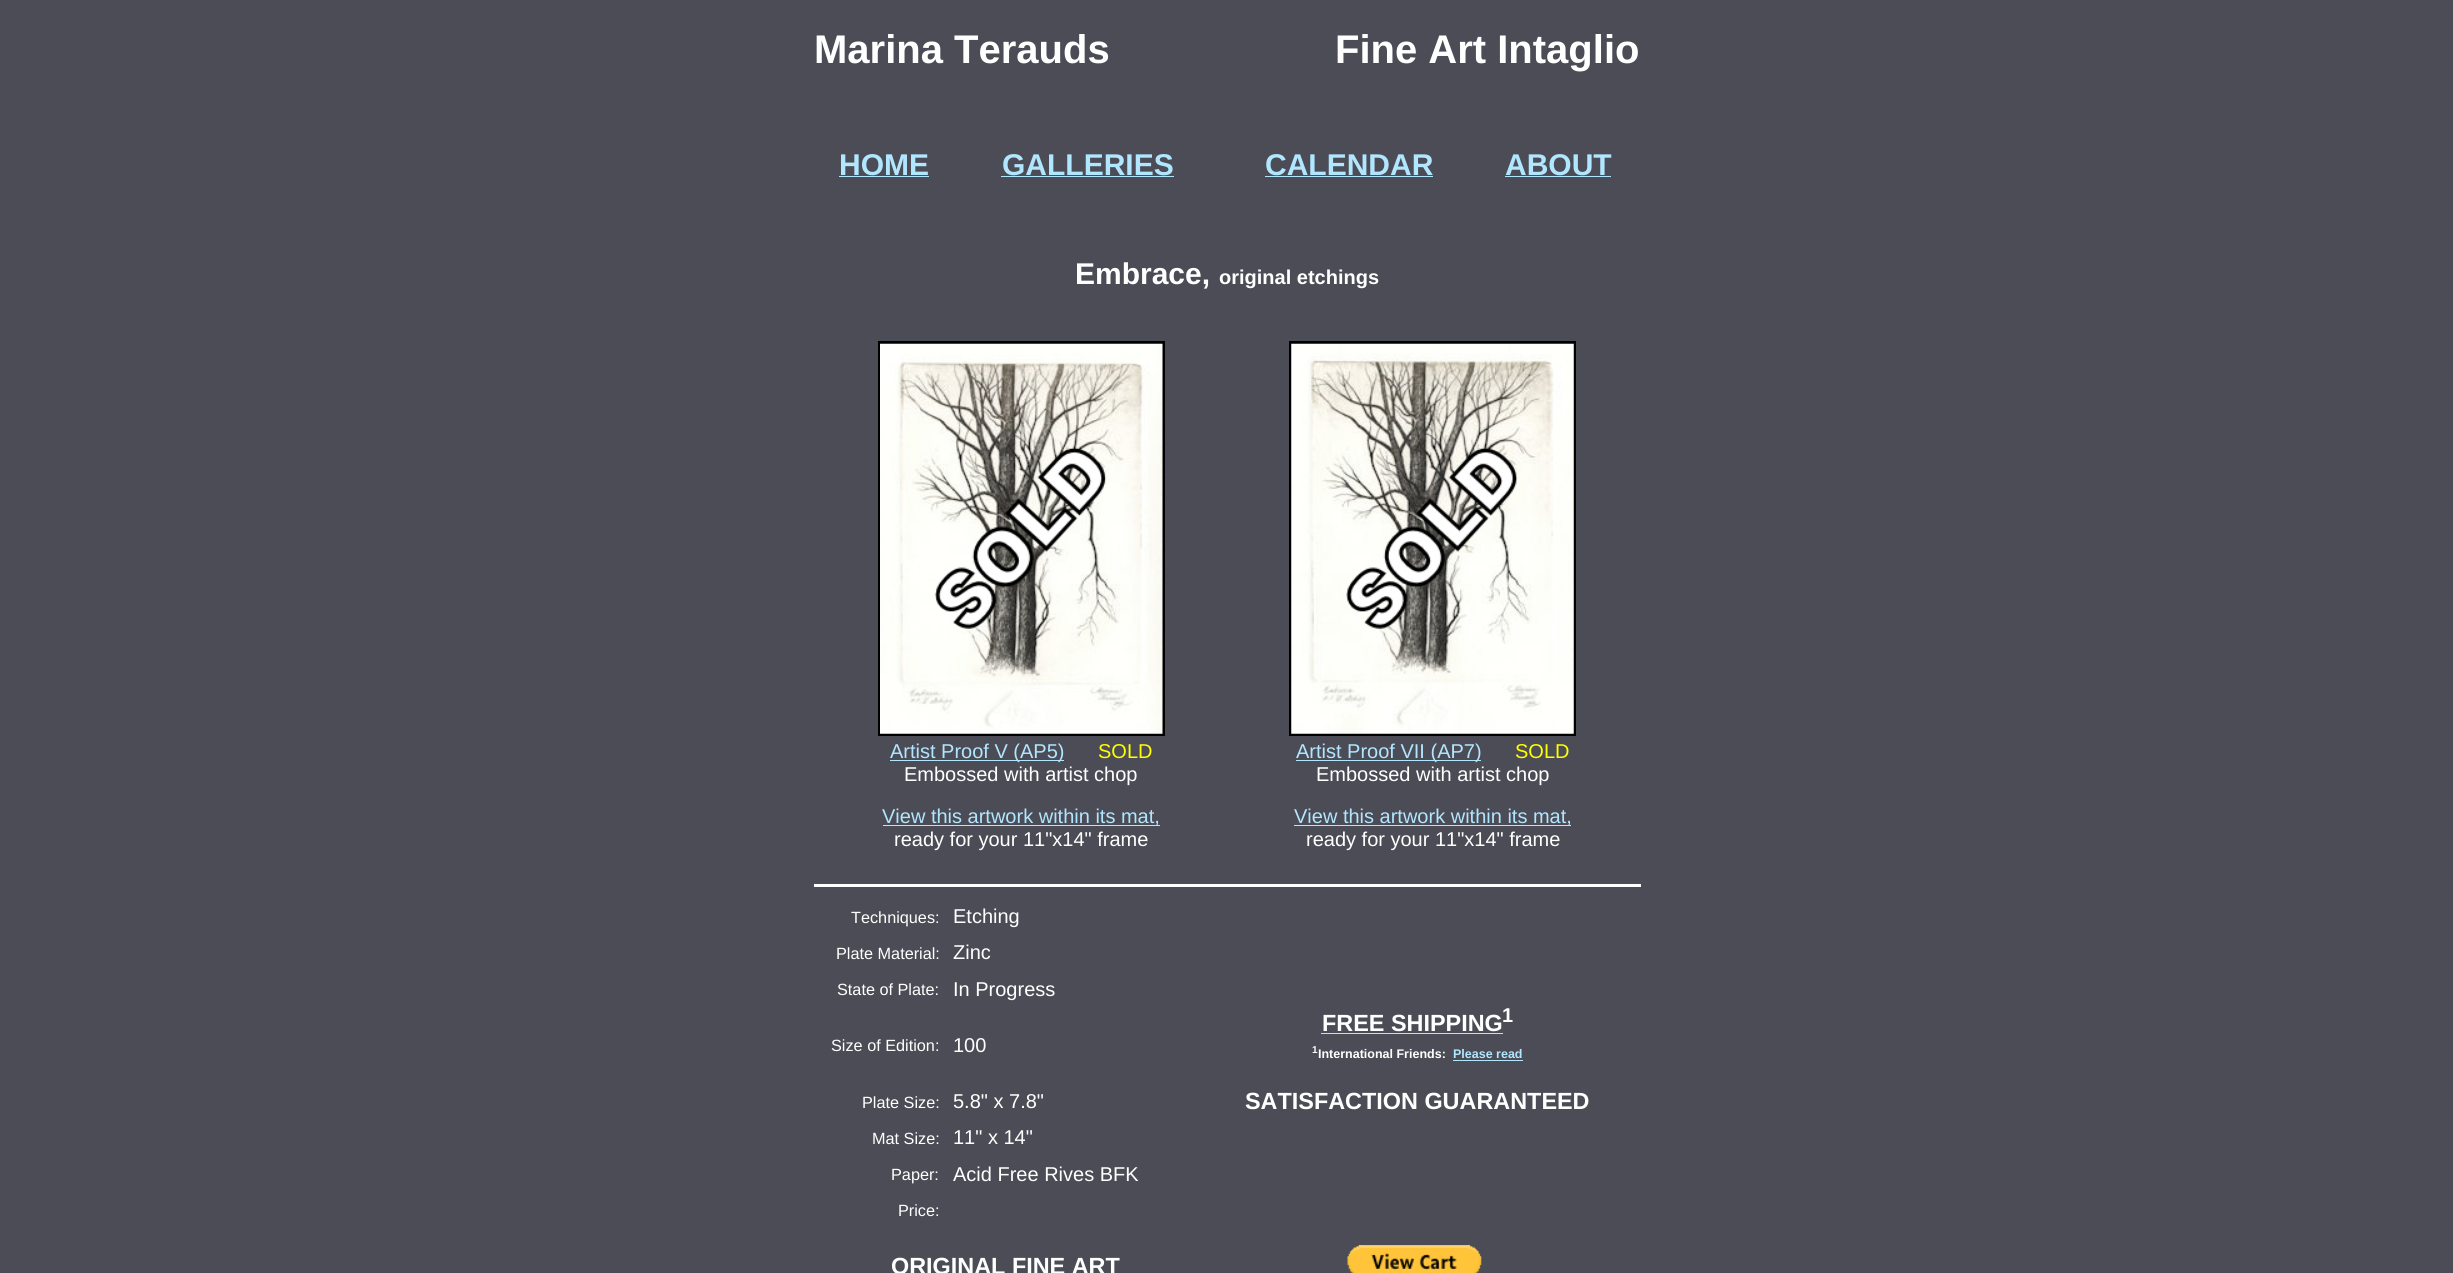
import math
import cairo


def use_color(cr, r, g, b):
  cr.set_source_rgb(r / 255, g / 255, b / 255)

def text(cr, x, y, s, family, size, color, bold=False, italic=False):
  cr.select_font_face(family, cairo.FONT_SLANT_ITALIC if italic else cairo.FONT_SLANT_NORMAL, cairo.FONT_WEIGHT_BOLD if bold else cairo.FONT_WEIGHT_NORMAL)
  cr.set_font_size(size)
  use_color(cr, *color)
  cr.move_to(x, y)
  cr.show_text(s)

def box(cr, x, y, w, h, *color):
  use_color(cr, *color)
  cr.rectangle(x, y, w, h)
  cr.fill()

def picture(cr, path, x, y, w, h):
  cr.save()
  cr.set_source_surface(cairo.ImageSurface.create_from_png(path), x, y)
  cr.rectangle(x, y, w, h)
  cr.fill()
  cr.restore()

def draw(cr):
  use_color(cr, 76, 76, 86)
  cr.paint()
  box(cr, 839, 176, 90, 1, 177, 230, 255)
  box(cr, 1001, 176, 173, 1, 177, 230, 255)
  box(cr, 1265, 176, 168, 1, 177, 230, 255)
  box(cr, 1505, 176, 106, 1, 177, 230, 255)
  cr.rectangle(879.5, 342.5, 284, 392)
  use_color(cr, 0, 0, 0)
  cr.set_line_width(3)
  cr.stroke()
  picture(cr, "img_01.png", 880, 343, 283, 391)
  box(cr, 890, 760, 174, 1, 177, 230, 255)
  box(cr, 883, 825, 277, 1, 177, 230, 255)
  cr.rectangle(1290.5, 342.5, 284, 392)
  use_color(cr, 0, 0, 0)
  cr.stroke()
  picture(cr, "img_02.png", 1291, 343, 283, 391)
  box(cr, 1296, 760, 185, 1, 177, 230, 255)
  box(cr, 1294, 825, 277, 1, 177, 230, 255)
  box(cr, 814, 884, 827, 3, 255, 255, 255)
  box(cr, 1321, 1033, 182, 1, 177, 230, 255)
  box(cr, 1453, 1060, 70, 1, 177, 230, 255)
  picture(cr, "img_03.png", 1347, 1245, 135, 28)
  text(cr, 814, 63, "Marina Terauds", "Liberation Sans", 40, (255, 255, 255), bold=True)
  text(cr, 1335, 63, "Fine Art Intaglio", "Liberation Sans", 40, (255, 255, 255), bold=True)
  text(cr, 839, 175, "HOME", "Liberation Sans", 30, (177, 230, 255), bold=True)
  text(cr, 1002, 175, "GALLERIES", "Liberation Sans", 30, (177, 230, 255), bold=True)
  text(cr, 1265, 175, "CALENDAR", "Liberation Sans", 30, (177, 230, 255), bold=True)
  text(cr, 1505, 175, "ABOUT", "Liberation Sans", 30, (177, 230, 255), bold=True)
  text(cr, 1075, 284, "Embrace,", "Liberation Sans", 30, (255, 255, 255), bold=True)
  text(cr, 1219, 284, "original etchings", "Liberation Sans", 20, (255, 255, 255), bold=True)
  text(cr, 890, 758, "Artist Proof V (AP5)", "Liberation Sans", 20, (177, 230, 255))
  text(cr, 1098, 758, "SOLD", "Liberation Sans", 20, (255, 255, 0))
  text(cr, 904, 781, "Embossed with artist chop", "Liberation Sans", 20, (255, 255, 255))
  text(cr, 882, 823, "View this artwork within its mat,", "Liberation Sans", 20, (177, 230, 255))
  text(cr, 894, 846, "ready for your 11\"x14\" frame", "Liberation Sans", 20, (255, 255, 255))
  text(cr, 1296, 758, "Artist Proof VII (AP7)", "Liberation Sans", 20, (177, 230, 255))
  text(cr, 1515, 758, "SOLD", "Liberation Sans", 20, (255, 255, 0))
  text(cr, 1316, 781, "Embossed with artist chop", "Liberation Sans", 20, (255, 255, 255))
  text(cr, 1294, 823, "View this artwork within its mat,", "Liberation Sans", 20, (177, 230, 255))
  text(cr, 1306, 846, "ready for your 11\"x14\" frame", "Liberation Sans", 20, (255, 255, 255))
  text(cr, 851, 923, "Techniques:", "Liberation Sans", 16.25, (255, 255, 255))
  text(cr, 953, 923, "Etching", "Liberation Sans", 20, (255, 255, 255))
  text(cr, 836, 959, "Plate Material:", "Liberation Sans", 16.25, (255, 255, 255))
  text(cr, 953, 959, "Zinc", "Liberation Sans", 20, (255, 255, 255))
  text(cr, 837, 995, "State of Plate:", "Liberation Sans", 16.25, (255, 255, 255))
  text(cr, 953, 996, "In Progress", "Liberation Sans", 20, (255, 255, 255))
  text(cr, 831, 1051, "Size of Edition:", "Liberation Sans", 16.25, (255, 255, 255))
  text(cr, 953, 1052, "100", "Liberation Sans", 20, (255, 255, 255))
  text(cr, 862, 1108, "Plate Size:", "Liberation Sans", 16.25, (255, 255, 255))
  text(cr, 953, 1108, "5.8\" x 7.8\"", "Liberation Sans", 20, (255, 255, 255))
  text(cr, 872, 1144, "Mat Size:", "Liberation Sans", 16.25, (255, 255, 255))
  text(cr, 953, 1144, "11\" x 14\"", "Liberation Sans", 20, (255, 255, 255))
  text(cr, 891, 1180, "Paper:", "Liberation Sans", 16.25, (255, 255, 255))
  text(cr, 953, 1181, "Acid Free Rives BFK", "Liberation Sans", 20, (255, 255, 255))
  text(cr, 898, 1216, "Price:", "Liberation Sans", 16.25, (255, 255, 255))
  text(cr, 891, 1274, "ORIGINAL FINE ART", "Liberation Sans", 23.4, (255, 255, 255), bold=True)
  text(cr, 1322, 1031, "FREE SHIPPING", "Liberation Sans", 23.4, (255, 255, 255), bold=True)
  text(cr, 1502, 1022, "1", "Liberation Sans", 20, (255, 255, 255), bold=True)
  text(cr, 1312, 1053, "1", "Liberation Sans", 10, (255, 255, 255), bold=True)
  text(cr, 1318, 1058, "International Friends:", "Liberation Sans", 12.5, (255, 255, 255), bold=True)
  text(cr, 1453, 1058, "Please read", "Liberation Sans", 12.5, (177, 230, 255), bold=True)
  text(cr, 1245, 1109, "SATISFACTION GUARANTEED", "Liberation Sans", 23.4, (255, 255, 255), bold=True)


surface = cairo.ImageSurface(cairo.FORMAT_RGB24, 2453, 1273)
cr = cairo.Context(surface)
options = cairo.FontOptions()
options.set_hint_metrics(cairo.HINT_METRICS_OFF)
options.set_hint_style(cairo.HINT_STYLE_NONE)
cr.set_font_options(options)
cr.set_miter_limit(4)
draw(cr)
surface.write_to_png("out.png")
